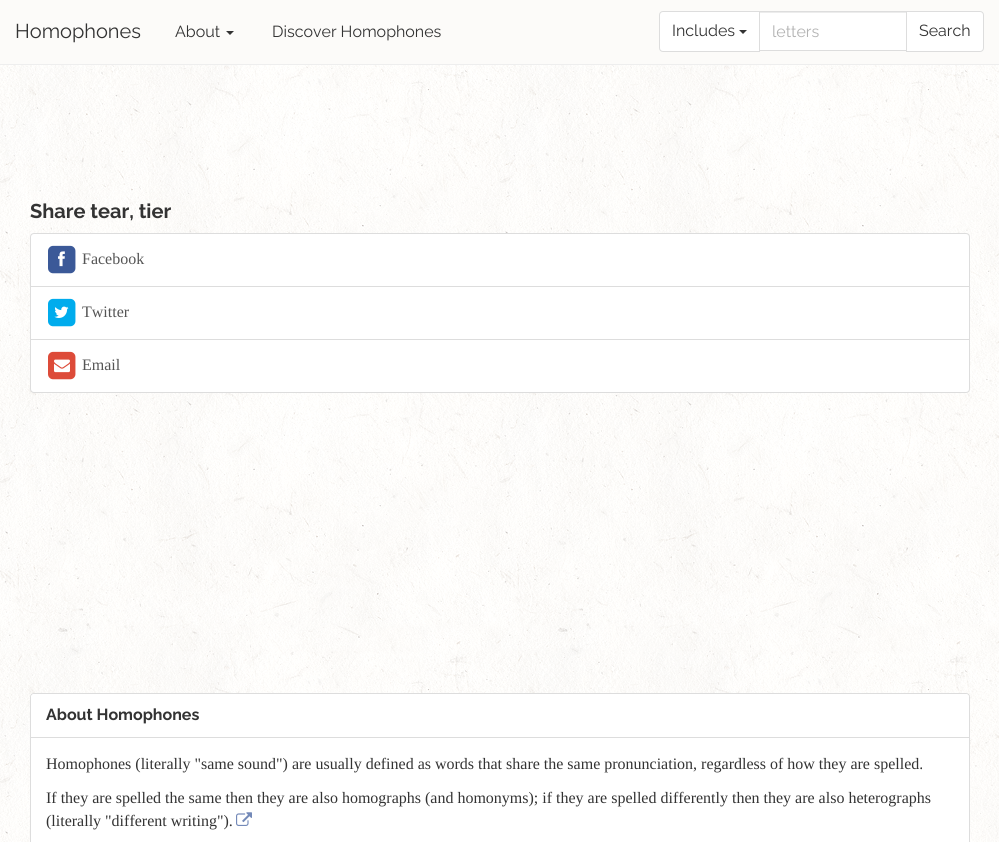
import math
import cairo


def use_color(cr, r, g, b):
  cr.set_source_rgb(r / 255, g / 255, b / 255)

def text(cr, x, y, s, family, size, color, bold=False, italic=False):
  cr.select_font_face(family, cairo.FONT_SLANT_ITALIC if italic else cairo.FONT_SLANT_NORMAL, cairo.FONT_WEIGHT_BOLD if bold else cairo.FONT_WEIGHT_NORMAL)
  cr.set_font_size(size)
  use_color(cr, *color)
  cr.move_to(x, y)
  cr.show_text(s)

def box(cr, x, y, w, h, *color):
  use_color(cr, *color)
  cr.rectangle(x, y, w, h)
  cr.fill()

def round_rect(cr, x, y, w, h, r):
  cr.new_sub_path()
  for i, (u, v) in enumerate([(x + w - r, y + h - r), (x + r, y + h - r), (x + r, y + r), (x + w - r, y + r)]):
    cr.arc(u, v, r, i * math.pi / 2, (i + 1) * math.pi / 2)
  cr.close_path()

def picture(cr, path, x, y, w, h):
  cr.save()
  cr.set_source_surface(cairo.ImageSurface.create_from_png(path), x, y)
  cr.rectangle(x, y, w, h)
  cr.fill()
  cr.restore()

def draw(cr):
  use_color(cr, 255, 255, 255)
  cr.paint()
  picture(cr, "img_01.png", 0, 65, 999, 777)
  box(cr, 0, 0, 999, 64, 252, 251, 249)
  box(cr, 0, 64, 999, 1, 238, 238, 238)
  use_color(cr, 51, 51, 51)
  cr.new_path()
  cr.move_to(226, 31)
  cr.line_to(234, 31)
  cr.line_to(230, 35)
  cr.close_path()
  cr.fill()
  box(cr, 760, 13, 146, 37, 255, 255, 255)
  box(cr, 760, 12, 146, 1, 236, 236, 236)
  cr.rectangle(759.5, 11.5, 147, 39)
  use_color(cr, 221, 221, 221)
  cr.set_line_width(1)
  cr.stroke()
  use_color(cr, 255, 255, 255)
  cr.new_path()
  cr.move_to(663, 11.5)
  cr.line_to(759.5, 11.5)
  cr.line_to(759.5, 51.5)
  cr.line_to(663, 51.5)
  cr.curve_to(661, 51.5, 659.5, 50, 659.5, 48)
  cr.line_to(659.5, 15)
  cr.curve_to(659.5, 13, 661, 11.5, 663, 11.5)
  cr.close_path()
  cr.fill_preserve()
  use_color(cr, 221, 221, 221)
  cr.stroke()
  use_color(cr, 51, 51, 51)
  cr.new_path()
  cr.move_to(739, 30)
  cr.line_to(747, 30)
  cr.line_to(743, 34)
  cr.close_path()
  cr.fill()
  use_color(cr, 255, 255, 255)
  cr.new_path()
  cr.move_to(906.5, 11.5)
  cr.line_to(980, 11.5)
  cr.curve_to(982, 11.5, 983.5, 13, 983.5, 15)
  cr.line_to(983.5, 48)
  cr.curve_to(983.5, 50, 982, 51.5, 980, 51.5)
  cr.line_to(906.5, 51.5)
  cr.close_path()
  cr.fill_preserve()
  use_color(cr, 221, 221, 221)
  cr.stroke()
  use_color(cr, 255, 255, 255)
  cr.new_path()
  cr.move_to(34, 233.5)
  cr.line_to(966, 233.5)
  cr.curve_to(968, 233.5, 969.5, 235, 969.5, 237)
  cr.line_to(969.5, 286.5)
  cr.line_to(30.5, 286.5)
  cr.line_to(30.5, 237)
  cr.curve_to(30.5, 235, 32, 233.5, 34, 233.5)
  cr.close_path()
  cr.fill_preserve()
  use_color(cr, 221, 221, 221)
  cr.stroke()
  picture(cr, "img_02.png", 48, 245, 28, 29)
  picture(cr, "img_03.png", 58, 251, 7, 16)
  use_color(cr, 255, 255, 255)
  cr.rectangle(30.5, 286.5, 939, 53)
  cr.fill_preserve()
  use_color(cr, 221, 221, 221)
  cr.stroke()
  picture(cr, "img_04.png", 48, 298, 28, 29)
  picture(cr, "img_05.png", 54, 306, 15, 12)
  use_color(cr, 255, 255, 255)
  cr.new_path()
  cr.move_to(30.5, 339.5)
  cr.line_to(969.5, 339.5)
  cr.line_to(969.5, 389)
  cr.curve_to(969.5, 391, 968, 392.5, 966, 392.5)
  cr.line_to(34, 392.5)
  cr.curve_to(32, 392.5, 30.5, 391, 30.5, 389)
  cr.close_path()
  cr.fill_preserve()
  use_color(cr, 221, 221, 221)
  cr.stroke()
  picture(cr, "img_06.png", 48, 351, 28, 29)
  picture(cr, "img_07.png", 54, 359, 16, 14)
  use_color(cr, 255, 255, 255)
  round_rect(cr, 30.5, 693.5, 939, 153, 3.5)
  cr.fill_preserve()
  use_color(cr, 221, 221, 221)
  cr.stroke()
  use_color(cr, 255, 255, 255)
  cr.new_path()
  cr.move_to(34, 694)
  cr.line_to(966, 694)
  cr.curve_to(967.5, 694, 969, 695.5, 969, 697)
  cr.line_to(969, 738)
  cr.line_to(31, 738)
  cr.line_to(31, 697)
  cr.curve_to(31, 695.5, 32.5, 694, 34, 694)
  cr.close_path()
  cr.fill()
  box(cr, 31, 737, 938, 1, 221, 221, 221)
  picture(cr, "img_08.png", 236, 812, 16, 14)
  text(cr, 15, 38, "Homophones", "Raleway", 20, (51, 51, 51))
  text(cr, 175, 37, "About", "Raleway", 16, (51, 51, 51))
  text(cr, 272, 37, "Discover Homophones", "Raleway", 16, (51, 51, 51))
  text(cr, 672, 36, "Includes", "Raleway", 16, (51, 51, 51))
  text(cr, 772, 37, "letters", "Raleway", 16, (179, 179, 179))
  text(cr, 919, 36, "Search", "Raleway", 16, (51, 51, 51))
  text(cr, 30, 218, "Share tear, tier", "Raleway", 20, (51, 51, 51), bold=True)
  text(cr, 82, 264, "Facebook", "Liberation Serif", 16, (85, 85, 85))
  text(cr, 82, 317, "Twitter", "Liberation Serif", 16, (85, 85, 85))
  text(cr, 82, 370, "Email", "Liberation Serif", 16, (85, 85, 85))
  text(cr, 46, 720, "About Homophones", "Raleway", 16, (51, 51, 51), bold=True)
  text(cr, 46, 769, "Homophones (literally \"same sound\") are usually defined as words that share the same pronunciation, regardless of how they are spelled.", "Liberation Serif", 16, (51, 51, 51))
  text(cr, 46, 803, "If they are spelled the same then they are also homographs (and homonyms); if they are spelled differently then they are also heterographs", "Liberation Serif", 16, (51, 51, 51))
  text(cr, 46, 826, "(literally \"different writing\").", "Liberation Serif", 16, (51, 51, 51))


surface = cairo.ImageSurface(cairo.FORMAT_RGB24, 999, 842)
cr = cairo.Context(surface)
options = cairo.FontOptions()
options.set_hint_metrics(cairo.HINT_METRICS_OFF)
options.set_hint_style(cairo.HINT_STYLE_NONE)
cr.set_font_options(options)
cr.set_miter_limit(4)
draw(cr)
surface.write_to_png("out.png")
